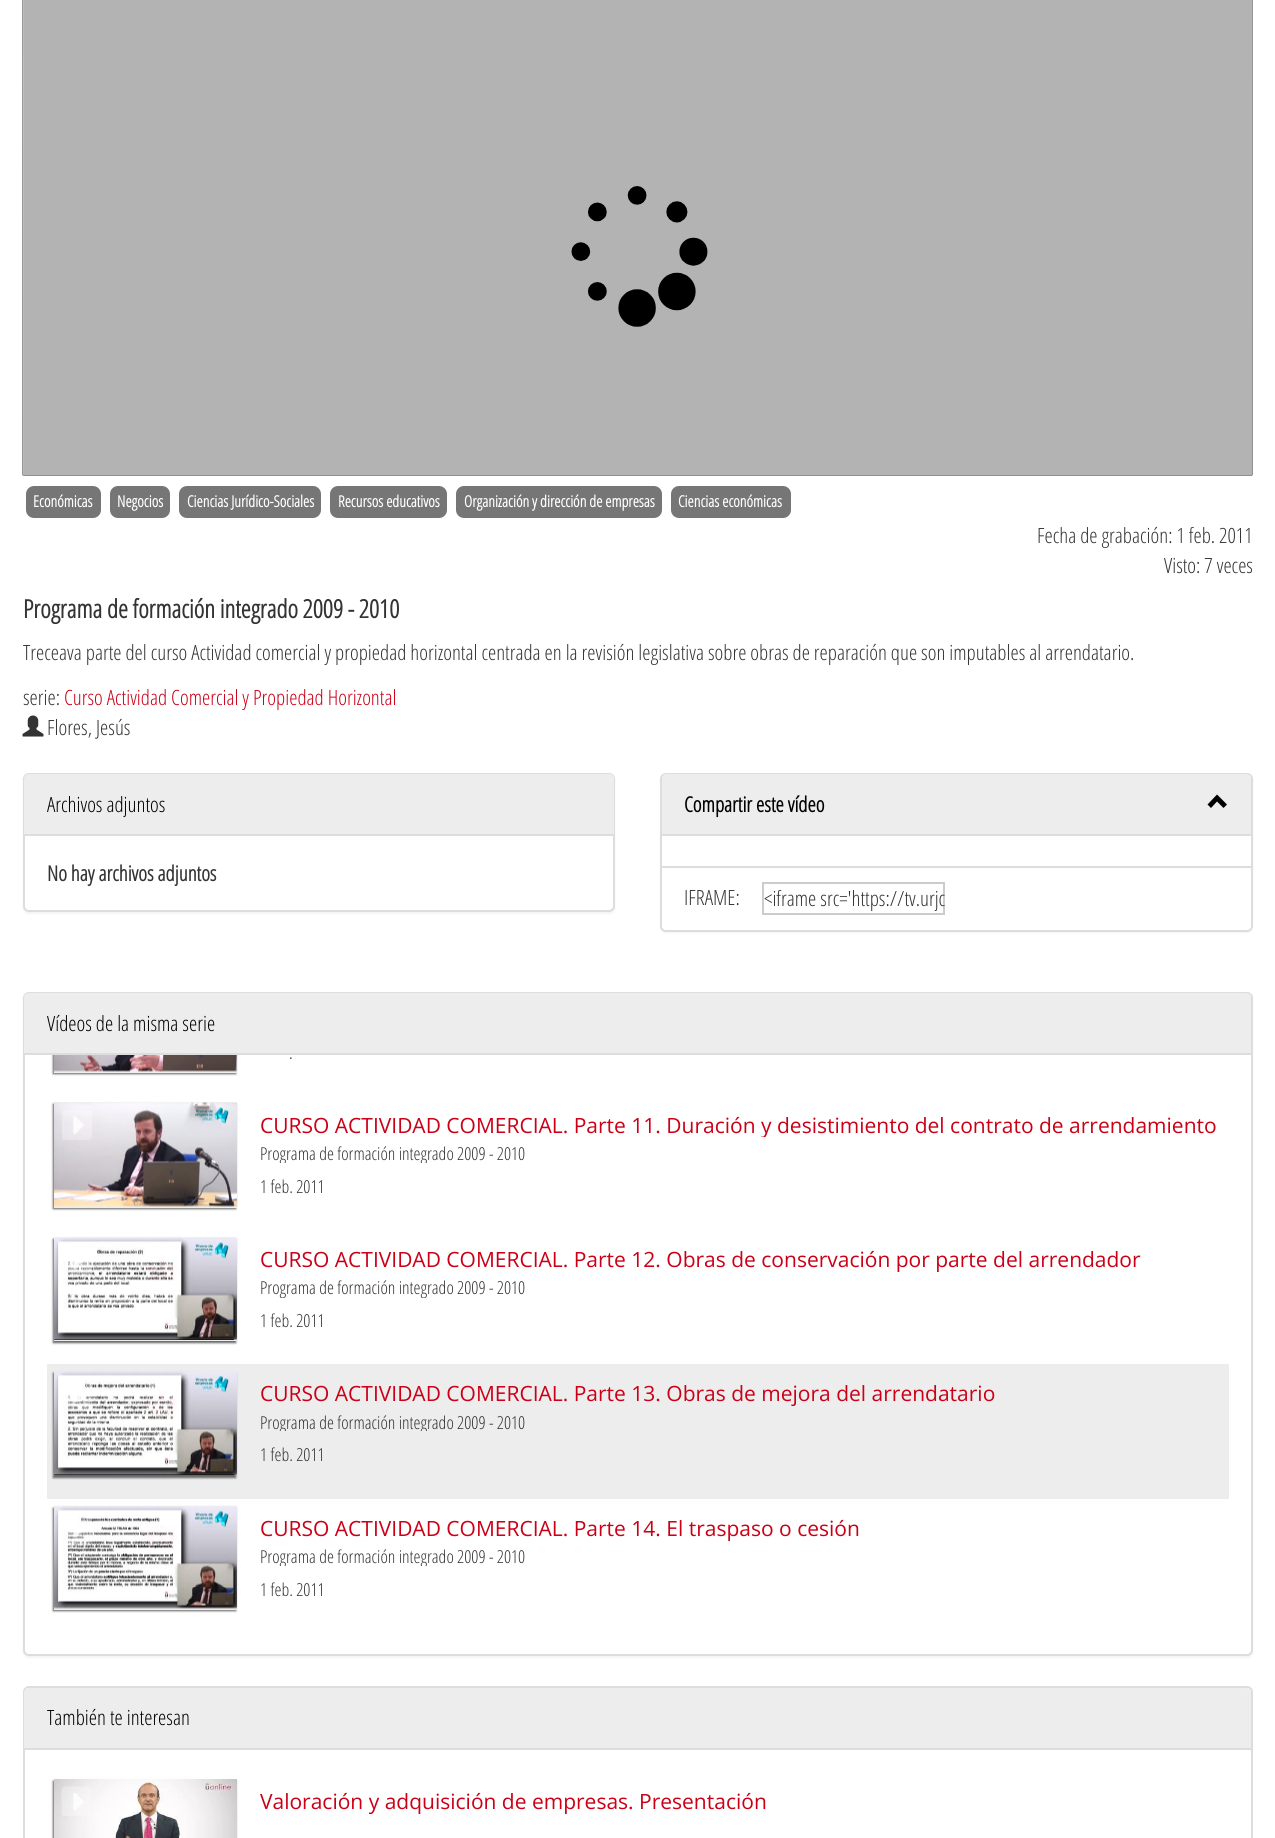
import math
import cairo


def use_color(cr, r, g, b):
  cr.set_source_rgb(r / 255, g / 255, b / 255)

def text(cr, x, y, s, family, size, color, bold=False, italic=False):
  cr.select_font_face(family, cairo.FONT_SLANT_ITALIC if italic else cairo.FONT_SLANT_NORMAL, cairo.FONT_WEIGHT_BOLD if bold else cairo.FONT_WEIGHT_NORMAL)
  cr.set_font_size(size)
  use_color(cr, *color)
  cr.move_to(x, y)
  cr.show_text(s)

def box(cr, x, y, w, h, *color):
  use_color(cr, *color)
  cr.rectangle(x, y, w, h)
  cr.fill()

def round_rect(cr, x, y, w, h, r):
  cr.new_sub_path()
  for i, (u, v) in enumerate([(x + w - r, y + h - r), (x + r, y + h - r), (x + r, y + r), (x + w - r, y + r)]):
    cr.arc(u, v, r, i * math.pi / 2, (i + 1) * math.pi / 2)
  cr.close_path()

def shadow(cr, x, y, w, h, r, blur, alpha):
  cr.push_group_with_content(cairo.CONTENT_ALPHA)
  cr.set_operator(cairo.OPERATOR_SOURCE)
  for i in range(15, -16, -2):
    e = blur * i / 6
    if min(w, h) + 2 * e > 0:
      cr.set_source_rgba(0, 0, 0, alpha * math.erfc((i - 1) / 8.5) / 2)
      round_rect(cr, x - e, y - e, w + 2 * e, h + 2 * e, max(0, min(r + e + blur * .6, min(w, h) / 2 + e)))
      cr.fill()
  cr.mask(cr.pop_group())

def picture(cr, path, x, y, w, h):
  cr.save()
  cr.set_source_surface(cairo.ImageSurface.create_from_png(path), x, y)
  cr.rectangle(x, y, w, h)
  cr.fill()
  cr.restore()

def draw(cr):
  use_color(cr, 255, 255, 255)
  cr.paint()
  picture(cr, "img_01.png", 22, 0, 1231, 476)
  use_color(cr, 118, 118, 118)
  round_rect(cr, 26, 486, 75, 32, 8)
  cr.fill()
  round_rect(cr, 110, 486, 60, 32, 8)
  cr.fill()
  round_rect(cr, 179, 486, 142, 32, 8)
  cr.fill()
  round_rect(cr, 330, 486, 117, 32, 8)
  cr.fill()
  round_rect(cr, 456, 486, 206, 32, 8)
  cr.fill()
  round_rect(cr, 671, 486, 120, 32, 8)
  cr.fill()
  picture(cr, "img_02.png", 22, 715, 22, 22)
  use_color(cr, 0, 0, 0)
  shadow(cr, 23, 774, 592, 140, 6, 1, 0.05)
  use_color(cr, 255, 255, 255)
  round_rect(cr, 24, 774, 590, 137, 5)
  cr.fill_preserve()
  use_color(cr, 221, 221, 221)
  cr.stroke()
  use_color(cr, 237, 237, 237)
  cr.new_path()
  cr.move_to(29, 774)
  cr.line_to(609, 774)
  cr.curve_to(612, 774, 614, 776, 614, 779)
  cr.line_to(614, 836)
  cr.line_to(24, 836)
  cr.line_to(24, 779)
  cr.curve_to(24, 776, 26, 774, 29, 774)
  cr.close_path()
  cr.fill()
  box(cr, 24, 834, 590, 2, 221, 221, 221)
  use_color(cr, 0, 0, 0)
  shadow(cr, 660, 774, 593, 159, 6, 1, 0.05)
  use_color(cr, 255, 255, 255)
  round_rect(cr, 661, 774, 591, 157, 5)
  cr.fill_preserve()
  use_color(cr, 221, 221, 221)
  cr.stroke()
  use_color(cr, 237, 237, 237)
  cr.new_path()
  cr.move_to(667, 774)
  cr.line_to(1246, 774)
  cr.curve_to(1249, 774, 1251, 776, 1251, 779)
  cr.line_to(1251, 836)
  cr.line_to(662, 836)
  cr.line_to(662, 779)
  cr.curve_to(662, 776, 664, 774, 667, 774)
  cr.close_path()
  cr.fill()
  box(cr, 662, 834, 589, 2, 221, 221, 221)
  use_color(cr, 0, 0, 0)
  cr.new_path()
  cr.move_to(1227, 804.5)
  cr.line_to(1223.5, 808)
  cr.line_to(1217, 801.5)
  cr.line_to(1211, 808)
  cr.line_to(1207.5, 804.5)
  cr.line_to(1217, 794.5)
  cr.close_path()
  cr.fill()
  use_color(cr, 255, 255, 255)
  cr.new_path()
  cr.move_to(662, 866)
  cr.line_to(1251, 866)
  cr.line_to(1251, 925)
  cr.curve_to(1251, 928, 1249, 930, 1246, 930)
  cr.line_to(667, 930)
  cr.curve_to(664, 930, 662, 928, 662, 925)
  cr.close_path()
  cr.fill()
  box(cr, 662, 866, 589, 2, 221, 221, 221)
  cr.rectangle(763, 883, 181, 31)
  use_color(cr, 204, 204, 204)
  cr.stroke()
  use_color(cr, 0, 0, 0)
  shadow(cr, 23, 993, 1230, 665, 6, 1, 0.05)
  use_color(cr, 255, 255, 255)
  round_rect(cr, 24, 993, 1228, 662, 5)
  cr.fill_preserve()
  use_color(cr, 221, 221, 221)
  cr.stroke()
  use_color(cr, 237, 237, 237)
  cr.new_path()
  cr.move_to(29, 993)
  cr.line_to(1246, 993)
  cr.curve_to(1249, 993, 1251, 995, 1251, 998)
  cr.line_to(1251, 1055)
  cr.line_to(24, 1055)
  cr.line_to(24, 998)
  cr.curve_to(24, 995, 26, 993, 29, 993)
  cr.close_path()
  cr.fill()
  box(cr, 24, 1053, 1227, 2, 221, 221, 221)
  cr.save()
  cr.rectangle(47, 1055, 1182, 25)
  cr.clip()
  use_color(cr, 102, 102, 102)
  shadow(cr, 53, 971, 183, 103, 0, 1, 1)
  cr.restore()
  box(cr, 54, 1070, 183, 3, 238, 238, 238)
  picture(cr, "img_03.png", 54, 1055, 183, 17)
  use_color(cr, 102, 102, 102)
  shadow(cr, 53, 1104, 183, 105, 0, 1, 1)
  box(cr, 54, 1205, 183, 3, 238, 238, 238)
  picture(cr, "img_04.png", 54, 1102, 183, 105)
  picture(cr, "img_05.png", 62, 1110, 30, 30)
  use_color(cr, 102, 102, 102)
  shadow(cr, 53, 1239, 183, 104, 0, 1, 1)
  box(cr, 54, 1339, 183, 2, 238, 238, 238)
  box(cr, 54, 1339, 180, 1, 0, 0, 0)
  picture(cr, "img_06.png", 54, 1237, 183, 103)
  picture(cr, "img_07.png", 68, 1261, 24, 14)
  box(cr, 47, 1364, 1182, 135, 237, 237, 237)
  use_color(cr, 102, 102, 102)
  shadow(cr, 53, 1373, 183, 105, 0, 1, 1)
  box(cr, 54, 1474, 180, 1, 0, 0, 0)
  picture(cr, "img_08.png", 54, 1370, 183, 105)
  picture(cr, "img_09.png", 68, 1383, 24, 26)
  use_color(cr, 102, 102, 102)
  shadow(cr, 53, 1508, 183, 103, 0, 1, 1)
  box(cr, 54, 1506, 183, 104, 238, 238, 238)
  picture(cr, "img_10.png", 54, 1505, 183, 104)
  picture(cr, "img_11.png", 68, 1517, 24, 27)
  round_rect(cr, 24, 1687, 1228, 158, 5)
  use_color(cr, 221, 221, 221)
  cr.stroke()
  use_color(cr, 237, 237, 237)
  cr.new_path()
  cr.move_to(29, 1688)
  cr.line_to(1246, 1688)
  cr.curve_to(1249, 1688, 1251, 1690, 1251, 1693)
  cr.line_to(1251, 1749)
  cr.line_to(24, 1749)
  cr.line_to(24, 1693)
  cr.curve_to(24, 1690, 26, 1688, 29, 1688)
  cr.close_path()
  cr.fill()
  box(cr, 24, 1748, 1227, 2, 221, 221, 221)
  use_color(cr, 102, 102, 102)
  shadow(cr, 53, 1781, 183, 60, 0, 1, 1)
  picture(cr, "img_12.png", 54, 1779, 183, 59)
  picture(cr, "img_13.png", 61, 1786, 30, 30)
  text(cr, 33, 507, "Económicas", "Open Sans", 15.75, (255, 255, 255), bold=True)
  text(cr, 117, 507, "Negocios", "Open Sans", 15.75, (255, 255, 255), bold=True)
  text(cr, 187, 507, "Ciencias Jurídico-Sociales", "Open Sans", 15.75, (255, 255, 255), bold=True)
  text(cr, 338, 507, "Recursos educativos", "Open Sans", 15.75, (255, 255, 255), bold=True)
  text(cr, 464, 507, "Organización y dirección de empresas", "Open Sans", 15.75, (255, 255, 255), bold=True)
  text(cr, 678, 507, "Ciencias económicas", "Open Sans", 15.75, (255, 255, 255), bold=True)
  text(cr, 1037, 543, "Fecha de grabación: 1 feb. 2011", "Open Sans Light", 21, (51, 51, 51))
  text(cr, 1164, 573, "Visto: 7 veces", "Open Sans Light", 21, (51, 51, 51))
  text(cr, 23, 618, "Programa de formación integrado 2009 - 2010", "Open Sans", 25.25, (51, 51, 51), bold=True)
  text(cr, 23, 660, "Treceava parte del curso Actividad comercial y propiedad horizontal centrada en la revisión legislativa sobre obras de reparación que son imputables al arrendatario.", "Open Sans Light", 21, (51, 51, 51))
  text(cr, 23, 705, "serie:", "Open Sans Light", 21, (51, 51, 51))
  text(cr, 64, 705, "Curso Actividad Comercial y Propiedad Horizontal", "Open Sans Light", 21, (203, 0, 23))
  text(cr, 47, 735, "Flores, Jesús", "Open Sans Light", 21, (51, 51, 51))
  text(cr, 47, 812, "Archivos adjuntos", "Open Sans Light", 21, (0, 0, 0))
  text(cr, 47, 881, "No hay archivos adjuntos", "Open Sans", 21, (51, 51, 51), bold=True)
  text(cr, 684, 812, "Compartir este vídeo", "Open Sans", 21, (0, 0, 0), bold=True)
  text(cr, 684, 905, "IFRAME:", "Open Sans Light", 21, (51, 51, 51))
  text(cr, 764, 906, "<iframe src='https://tv.urjc", "Open Sans Light", 21, (51, 51, 51))
  text(cr, 47, 1031, "Vídeos de la misma serie", "Open Sans Light", 21, (0, 0, 0))
  text(cr, 289, 1059, ".", "Open Sans Light", 17.8, (51, 51, 51))
  cr.save()
  cr.rectangle(260, 1110, 961, 27)
  cr.clip()
  text(cr, 260, 1133, "CURSO ACTIVIDAD COMERCIAL. Parte 11. Duración y desistimiento del contrato de arrendamiento", "Open Sans", 21, (203, 0, 23))
  cr.restore()
  cr.save()
  cr.rectangle(260, 1137, 961, 26)
  cr.clip()
  text(cr, 260, 1160, "Programa de formación integrado 2009 - 2010", "Open Sans Light", 17.8, (51, 51, 51))
  cr.restore()
  text(cr, 260, 1193, "1 feb. 2011", "Open Sans Light", 17.8, (51, 51, 51))
  text(cr, 260, 1267, "CURSO ACTIVIDAD COMERCIAL. Parte 12. Obras de conservación por parte del arrendador", "Open Sans", 21, (203, 0, 23))
  cr.save()
  cr.rectangle(260, 1272, 961, 26)
  cr.clip()
  text(cr, 260, 1294, "Programa de formación integrado 2009 - 2010", "Open Sans Light", 17.8, (51, 51, 51))
  cr.restore()
  text(cr, 260, 1327, "1 feb. 2011", "Open Sans Light", 17.8, (51, 51, 51))
  text(cr, 260, 1401, "CURSO ACTIVIDAD COMERCIAL. Parte 13. Obras de mejora del arrendatario", "Open Sans", 21, (203, 0, 23))
  cr.save()
  cr.rectangle(260, 1406, 961, 25)
  cr.clip()
  text(cr, 260, 1429, "Programa de formación integrado 2009 - 2010", "Open Sans Light", 17.8, (51, 51, 51))
  cr.restore()
  text(cr, 260, 1461, "1 feb. 2011", "Open Sans Light", 17.8, (51, 51, 51))
  text(cr, 260, 1536, "CURSO ACTIVIDAD COMERCIAL. Parte 14. El traspaso o cesión", "Open Sans", 21, (203, 0, 23))
  cr.save()
  cr.rectangle(260, 1541, 961, 25)
  cr.clip()
  text(cr, 260, 1563, "Programa de formación integrado 2009 - 2010", "Open Sans Light", 17.8, (51, 51, 51))
  cr.restore()
  text(cr, 260, 1596, "1 feb. 2011", "Open Sans Light", 17.8, (51, 51, 51))
  text(cr, 47, 1725, "También te interesan", "Open Sans Light", 21, (0, 0, 0))
  text(cr, 260, 1809, "Valoración y adquisición de empresas. Presentación", "Open Sans", 21, (203, 0, 23))


surface = cairo.ImageSurface(cairo.FORMAT_RGB24, 1275, 1838)
cr = cairo.Context(surface)
options = cairo.FontOptions()
options.set_hint_metrics(cairo.HINT_METRICS_OFF)
options.set_hint_style(cairo.HINT_STYLE_NONE)
cr.set_font_options(options)
cr.set_miter_limit(4)
draw(cr)
surface.write_to_png("out.png")
